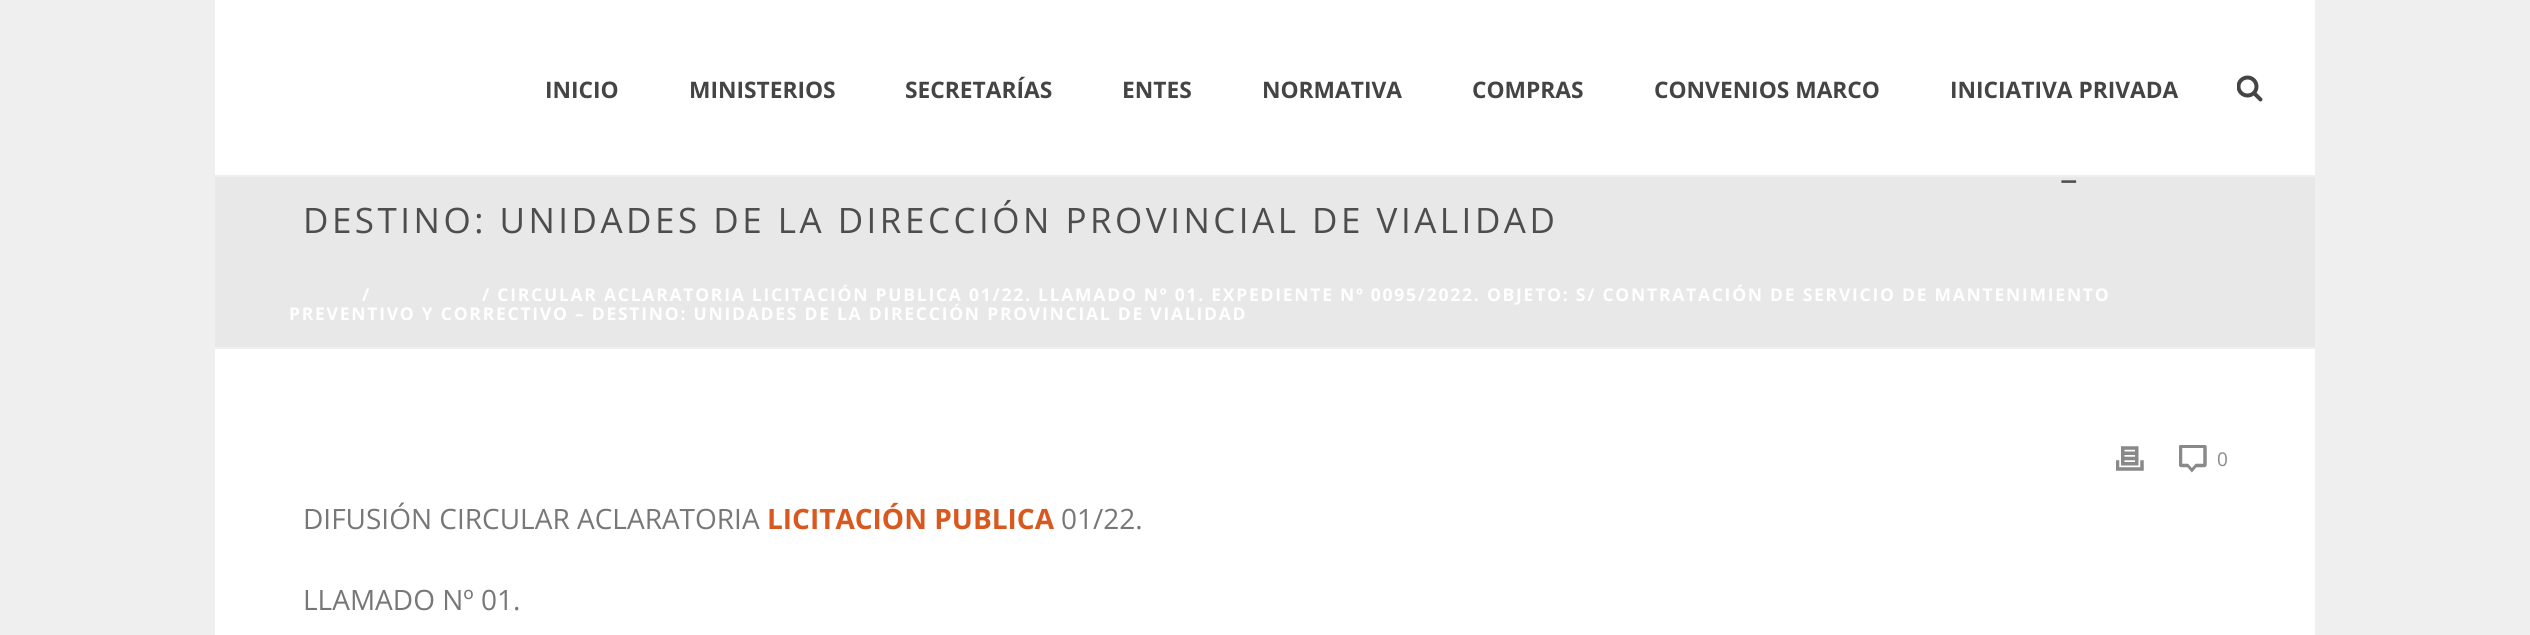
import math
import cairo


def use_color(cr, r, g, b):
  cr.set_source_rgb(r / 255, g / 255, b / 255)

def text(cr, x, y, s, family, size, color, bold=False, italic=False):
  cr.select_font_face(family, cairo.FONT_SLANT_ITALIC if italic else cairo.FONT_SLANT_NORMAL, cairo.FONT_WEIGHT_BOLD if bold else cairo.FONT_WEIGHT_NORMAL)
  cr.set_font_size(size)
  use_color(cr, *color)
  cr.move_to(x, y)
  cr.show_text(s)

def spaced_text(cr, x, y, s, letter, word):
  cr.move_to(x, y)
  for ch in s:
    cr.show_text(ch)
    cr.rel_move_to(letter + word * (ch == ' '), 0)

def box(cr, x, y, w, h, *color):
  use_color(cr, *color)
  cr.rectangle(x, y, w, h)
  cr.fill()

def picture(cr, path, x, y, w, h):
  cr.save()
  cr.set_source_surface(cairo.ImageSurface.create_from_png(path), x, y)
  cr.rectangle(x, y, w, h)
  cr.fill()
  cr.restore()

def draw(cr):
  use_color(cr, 239, 239, 239)
  cr.paint()
  box(cr, 215, 177, 2100, 170, 232, 232, 232)
  box(cr, 215, 0, 2100, 175, 255, 255, 255)
  picture(cr, "img_01.png", 2237, 75, 26, 27)
  box(cr, 215, 349, 2100, 286, 255, 255, 255)
  picture(cr, "img_02.png", 2116, 446, 28, 25)
  picture(cr, "img_03.png", 2179, 445, 28, 28)
  text(cr, 545, 98, "INICIO", "Open Sans", 22.75, (68, 68, 68), bold=True)
  text(cr, 689, 98, "MINISTERIOS", "Open Sans", 22.75, (68, 68, 68), bold=True)
  text(cr, 905, 98, "SECRETARÍAS", "Open Sans", 22.75, (68, 68, 68), bold=True)
  text(cr, 1122, 98, "ENTES", "Open Sans", 22.75, (68, 68, 68), bold=True)
  text(cr, 1262, 98, "NORMATIVA", "Open Sans", 22.75, (68, 68, 68), bold=True)
  text(cr, 1472, 98, "COMPRAS", "Open Sans", 22.75, (68, 68, 68), bold=True)
  text(cr, 1654, 98, "CONVENIOS MARCO", "Open Sans", 22.75, (68, 68, 68), bold=True)
  text(cr, 1950, 98, "INICIATIVA PRIVADA", "Open Sans", 22.75, (68, 68, 68), bold=True)
  cr.select_font_face("Open Sans")
  cr.set_font_size(35)
  use_color(cr, 77, 77, 77)
  spaced_text(cr, 2060, 191, "–", 3.5, 0)
  spaced_text(cr, 303, 233, "DESTINO: UNIDADES DE LA DIRECCIÓN PROVINCIAL DE VIALIDAD", 3.5, 0)
  cr.select_font_face("Open Sans", cairo.FONT_SLANT_NORMAL, cairo.FONT_WEIGHT_BOLD)
  cr.set_font_size(17.5)
  use_color(cr, 255, 255, 255)
  spaced_text(cr, 362, 301, "/", 1.75, 0)
  spaced_text(cr, 482, 301, "/ CIRCULAR ACLARATORIA LICITACIÓN PUBLICA 01/22. LLAMADO Nº 01. EXPEDIENTE Nº 0095/2022. OBJETO: S/ CONTRATACIÓN DE SERVICIO DE MANTENIMIENTO", 1.75, 0)
  spaced_text(cr, 289, 320, "PREVENTIVO Y CORRECTIVO – DESTINO: UNIDADES DE LA DIRECCIÓN PROVINCIAL DE VIALIDAD", 1.75, 0)
  text(cr, 2217, 466, "0", "Open Sans", 19, (137, 137, 137))
  text(cr, 303, 529, "DIFUSIÓN CIRCULAR ACLARATORIA", "Open Sans", 28, (119, 119, 119))
  text(cr, 767, 529, "LICITACIÓN PUBLICA", "Open Sans", 28, (217, 88, 31), bold=True)
  text(cr, 1061, 529, "01/22.", "Open Sans", 28, (119, 119, 119))
  text(cr, 303, 610, "LLAMADO Nº 01.", "Open Sans", 28, (119, 119, 119))


surface = cairo.ImageSurface(cairo.FORMAT_RGB24, 2530, 635)
cr = cairo.Context(surface)
options = cairo.FontOptions()
options.set_hint_metrics(cairo.HINT_METRICS_OFF)
options.set_hint_style(cairo.HINT_STYLE_NONE)
cr.set_font_options(options)
cr.set_miter_limit(4)
draw(cr)
surface.write_to_png("out.png")
